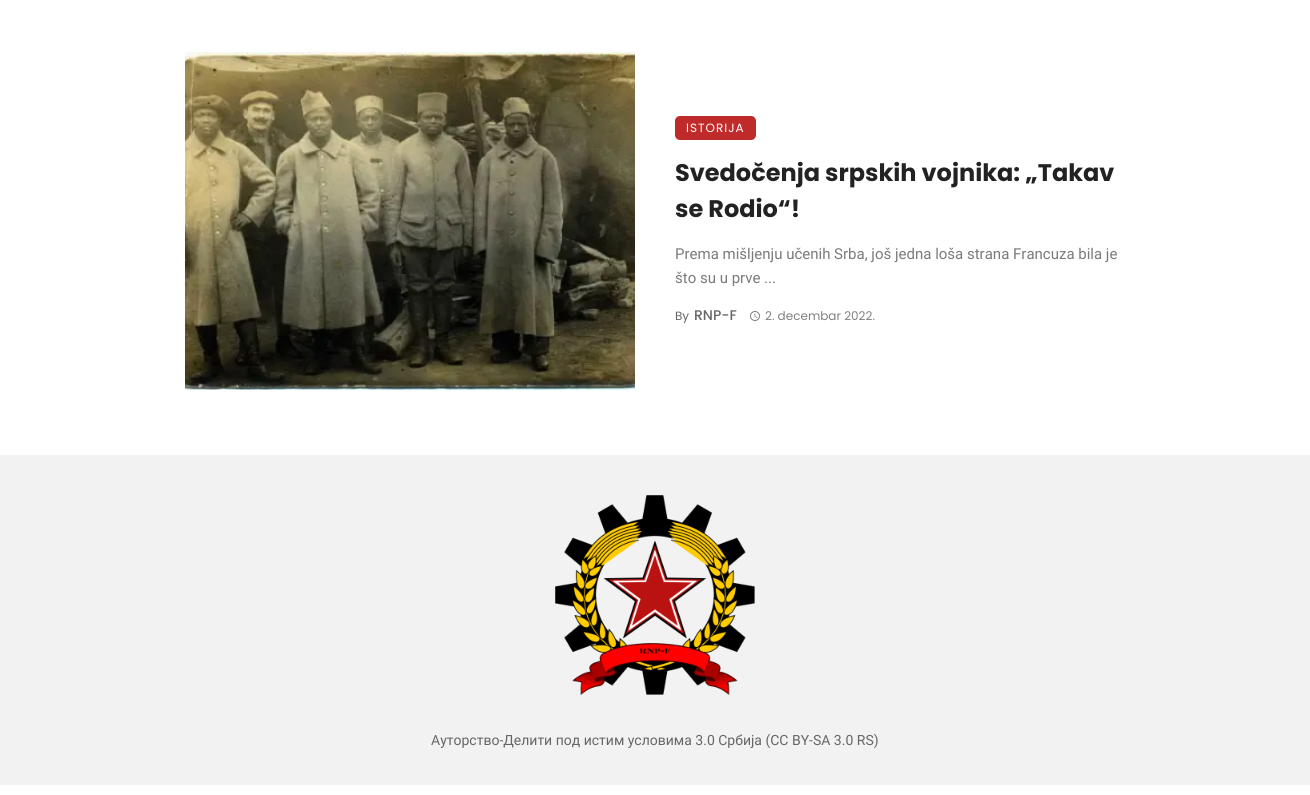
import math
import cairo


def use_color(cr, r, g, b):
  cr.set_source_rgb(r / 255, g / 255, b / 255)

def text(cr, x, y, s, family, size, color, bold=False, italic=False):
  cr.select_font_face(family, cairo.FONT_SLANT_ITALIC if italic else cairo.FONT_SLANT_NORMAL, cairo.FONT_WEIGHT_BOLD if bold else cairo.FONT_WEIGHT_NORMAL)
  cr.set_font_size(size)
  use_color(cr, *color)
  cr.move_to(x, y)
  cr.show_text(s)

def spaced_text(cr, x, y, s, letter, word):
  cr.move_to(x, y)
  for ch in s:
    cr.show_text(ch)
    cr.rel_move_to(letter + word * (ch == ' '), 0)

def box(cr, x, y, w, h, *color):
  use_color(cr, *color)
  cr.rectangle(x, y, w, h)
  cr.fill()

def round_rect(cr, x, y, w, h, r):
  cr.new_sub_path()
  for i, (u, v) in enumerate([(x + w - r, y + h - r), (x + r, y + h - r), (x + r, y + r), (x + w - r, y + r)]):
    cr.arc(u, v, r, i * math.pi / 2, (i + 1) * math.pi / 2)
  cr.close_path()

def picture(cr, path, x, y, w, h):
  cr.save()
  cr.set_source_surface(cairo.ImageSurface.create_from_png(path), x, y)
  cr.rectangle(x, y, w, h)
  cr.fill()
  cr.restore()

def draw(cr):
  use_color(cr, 255, 255, 255)
  cr.paint()
  picture(cr, "img_01.png", 185, 52, 450, 338)
  use_color(cr, 191, 43, 43)
  round_rect(cr, 675, 116, 81, 24, 5)
  cr.fill()
  picture(cr, "img_02.png", 750, 311, 10, 10)
  box(cr, 0, 455, 1310, 330, 242, 242, 242)
  picture(cr, "img_03.png", 555, 495, 200, 200)
  cr.select_font_face("Poppins")
  cr.set_font_size(12)
  use_color(cr, 255, 255, 255)
  spaced_text(cr, 686, 132, "ISTORIJA", 1, 0)
  text(cr, 675, 181, "Svedočenja srpskih vojnika: „Takav", "Poppins", 24, (34, 34, 34), bold=True)
  text(cr, 675, 217, "se Rodio“!", "Poppins", 24, (34, 34, 34), bold=True)
  text(cr, 675, 259, "Prema mišljenju učenih Srba, još jedna loša strana Francuza bila je", "Roboto", 15, (122, 122, 122))
  text(cr, 675, 283, "što su u prve ...", "Roboto", 15, (122, 122, 122))
  text(cr, 675, 320, "By", "Poppins", 12, (102, 102, 102))
  text(cr, 694, 320, "RNP-F", "Poppins Medium", 14, (102, 102, 102))
  text(cr, 765, 320, "2. decembar 2022.", "Poppins", 12, (128, 128, 128))
  text(cr, 431, 745, "Ауторство-Делити под истим условима 3.0 Србија (CC BY-SA 3.0 RS)", "Roboto", 14, (102, 102, 102))


surface = cairo.ImageSurface(cairo.FORMAT_RGB24, 1310, 795)
cr = cairo.Context(surface)
options = cairo.FontOptions()
options.set_hint_metrics(cairo.HINT_METRICS_OFF)
options.set_hint_style(cairo.HINT_STYLE_NONE)
cr.set_font_options(options)
cr.set_miter_limit(4)
draw(cr)
surface.write_to_png("out.png")
